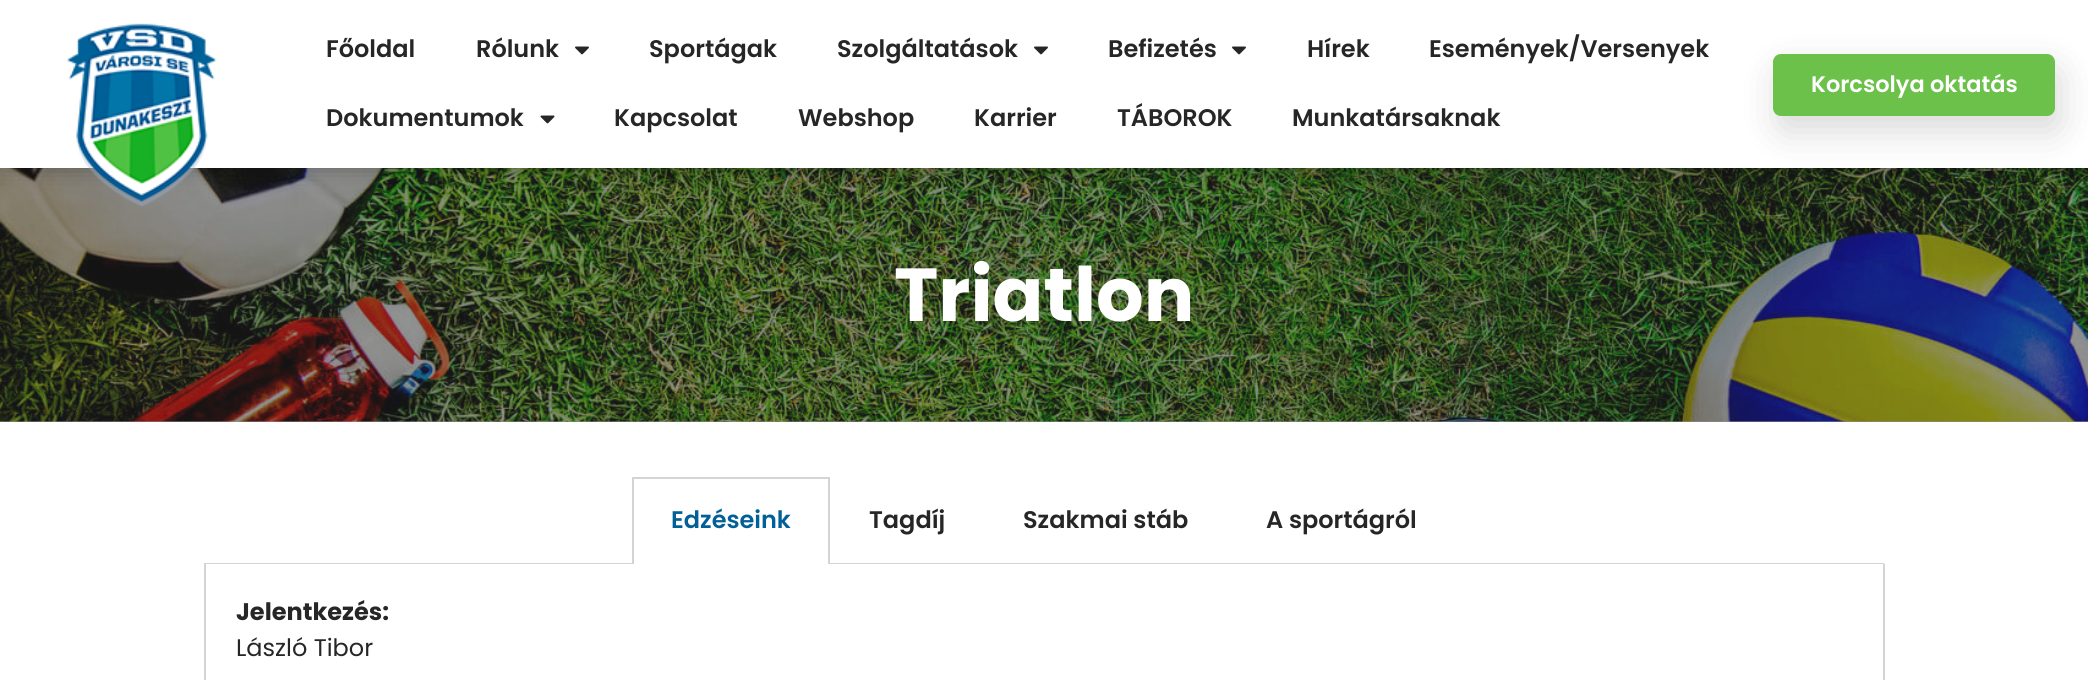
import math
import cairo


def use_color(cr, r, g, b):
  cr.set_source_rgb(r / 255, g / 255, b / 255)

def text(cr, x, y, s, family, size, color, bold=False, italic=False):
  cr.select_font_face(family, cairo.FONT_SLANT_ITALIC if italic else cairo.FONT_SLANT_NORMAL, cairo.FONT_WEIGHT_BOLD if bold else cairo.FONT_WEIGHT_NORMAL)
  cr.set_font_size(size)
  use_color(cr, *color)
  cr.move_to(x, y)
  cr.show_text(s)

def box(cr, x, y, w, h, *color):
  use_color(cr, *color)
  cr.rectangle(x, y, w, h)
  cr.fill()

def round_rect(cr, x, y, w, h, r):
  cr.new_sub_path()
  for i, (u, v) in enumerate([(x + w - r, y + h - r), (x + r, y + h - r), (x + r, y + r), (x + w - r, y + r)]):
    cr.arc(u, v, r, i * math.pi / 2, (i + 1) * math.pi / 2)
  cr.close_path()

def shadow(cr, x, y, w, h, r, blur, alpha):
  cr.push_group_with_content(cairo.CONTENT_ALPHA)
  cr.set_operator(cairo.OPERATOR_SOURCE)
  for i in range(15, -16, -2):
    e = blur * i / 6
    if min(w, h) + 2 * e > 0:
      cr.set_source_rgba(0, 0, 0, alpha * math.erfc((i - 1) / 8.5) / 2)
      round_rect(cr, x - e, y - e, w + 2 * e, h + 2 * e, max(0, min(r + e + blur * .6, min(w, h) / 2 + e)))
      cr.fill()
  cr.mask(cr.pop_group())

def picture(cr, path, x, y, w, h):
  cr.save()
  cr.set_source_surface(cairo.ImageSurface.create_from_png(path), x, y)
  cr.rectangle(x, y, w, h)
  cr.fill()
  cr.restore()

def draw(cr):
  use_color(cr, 255, 255, 255)
  cr.paint()
  box(cr, 0, 421, 2088, 1, 147, 147, 147)
  picture(cr, "img_04.png", 0, 168, 2088, 254)
  use_color(cr, 0, 0, 0)
  shadow(cr, 0, -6, 2088, 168, 0, 13, 0.5)
  box(cr, 0, 0, 2088, 168, 255, 255, 255)
  picture(cr, "img_01.png", 67, 23, 150, 184)
  picture(cr, "img_02.png", 575, 46, 14, 9)
  picture(cr, "img_02.png", 1034, 46, 14, 9)
  picture(cr, "img_02.png", 1232, 46, 14, 9)
  picture(cr, "img_03.png", 540, 115, 15, 9)
  use_color(cr, 0, 0, 0)
  shadow(cr, 1778, 69, 282, 62, 8, 19, 0.15)
  use_color(cr, 107, 193, 74)
  round_rect(cr, 1773, 54, 282, 62, 8)
  cr.fill()
  box(cr, 632, 477, 198, 2, 212, 212, 212)
  box(cr, 828, 477, 2, 87, 212, 212, 212)
  box(cr, 632, 477, 2, 87, 212, 212, 212)
  box(cr, 204, 563, 429, 1, 212, 212, 212)
  box(cr, 828, 563, 1056, 1, 212, 212, 212)
  box(cr, 1883, 564, 2, 116, 212, 212, 212)
  box(cr, 204, 564, 2, 116, 212, 212, 212)
  text(cr, 326, 57, "Főoldal", "Poppins SemiBold", 24, (38, 38, 38))
  text(cr, 476, 57, "Rólunk", "Poppins SemiBold", 24, (38, 38, 38))
  text(cr, 649, 57, "Sportágak", "Poppins SemiBold", 24, (38, 38, 38))
  text(cr, 837, 57, "Szolgáltatások", "Poppins SemiBold", 24, (38, 38, 38))
  text(cr, 1108, 57, "Befizetés", "Poppins SemiBold", 24, (38, 38, 38))
  text(cr, 1307, 57, "Hírek", "Poppins SemiBold", 24, (38, 38, 38))
  text(cr, 1429, 57, "Események/Versenyek", "Poppins SemiBold", 24, (38, 38, 38))
  text(cr, 326, 126, "Dokumentumok", "Poppins SemiBold", 24, (38, 38, 38))
  text(cr, 614, 126, "Kapcsolat", "Poppins SemiBold", 24, (38, 38, 38))
  text(cr, 798, 126, "Webshop", "Poppins SemiBold", 24, (38, 38, 38))
  text(cr, 974, 126, "Karrier", "Poppins SemiBold", 24, (38, 38, 38))
  text(cr, 1117, 126, "TÁBOROK", "Poppins SemiBold", 24, (38, 38, 38))
  text(cr, 1292, 126, "Munkatársaknak", "Poppins SemiBold", 24, (38, 38, 38))
  text(cr, 1811, 92, "Korcsolya oktatás", "Poppins SemiBold", 22.5, (255, 255, 255))
  text(cr, 894, 321, "Triatlon", "Poppins", 75, (255, 255, 255), bold=True)
  text(cr, 671, 528, "Edzéseink", "Poppins SemiBold", 24, (1, 96, 152))
  text(cr, 869, 528, "Tagdíj", "Poppins SemiBold", 24, (38, 38, 38))
  text(cr, 1023, 528, "Szakmai stáb", "Poppins SemiBold", 24, (38, 38, 38))
  text(cr, 1266, 528, "A sportágról", "Poppins SemiBold", 24, (38, 38, 38))
  text(cr, 236, 620, "Jelentkezés:", "Poppins", 24, (38, 38, 38), bold=True)
  text(cr, 236, 656, "László Tibor", "Poppins", 24, (38, 38, 38))


surface = cairo.ImageSurface(cairo.FORMAT_RGB24, 2088, 680)
cr = cairo.Context(surface)
options = cairo.FontOptions()
options.set_hint_metrics(cairo.HINT_METRICS_OFF)
options.set_hint_style(cairo.HINT_STYLE_NONE)
cr.set_font_options(options)
cr.set_miter_limit(4)
draw(cr)
surface.write_to_png("out.png")
